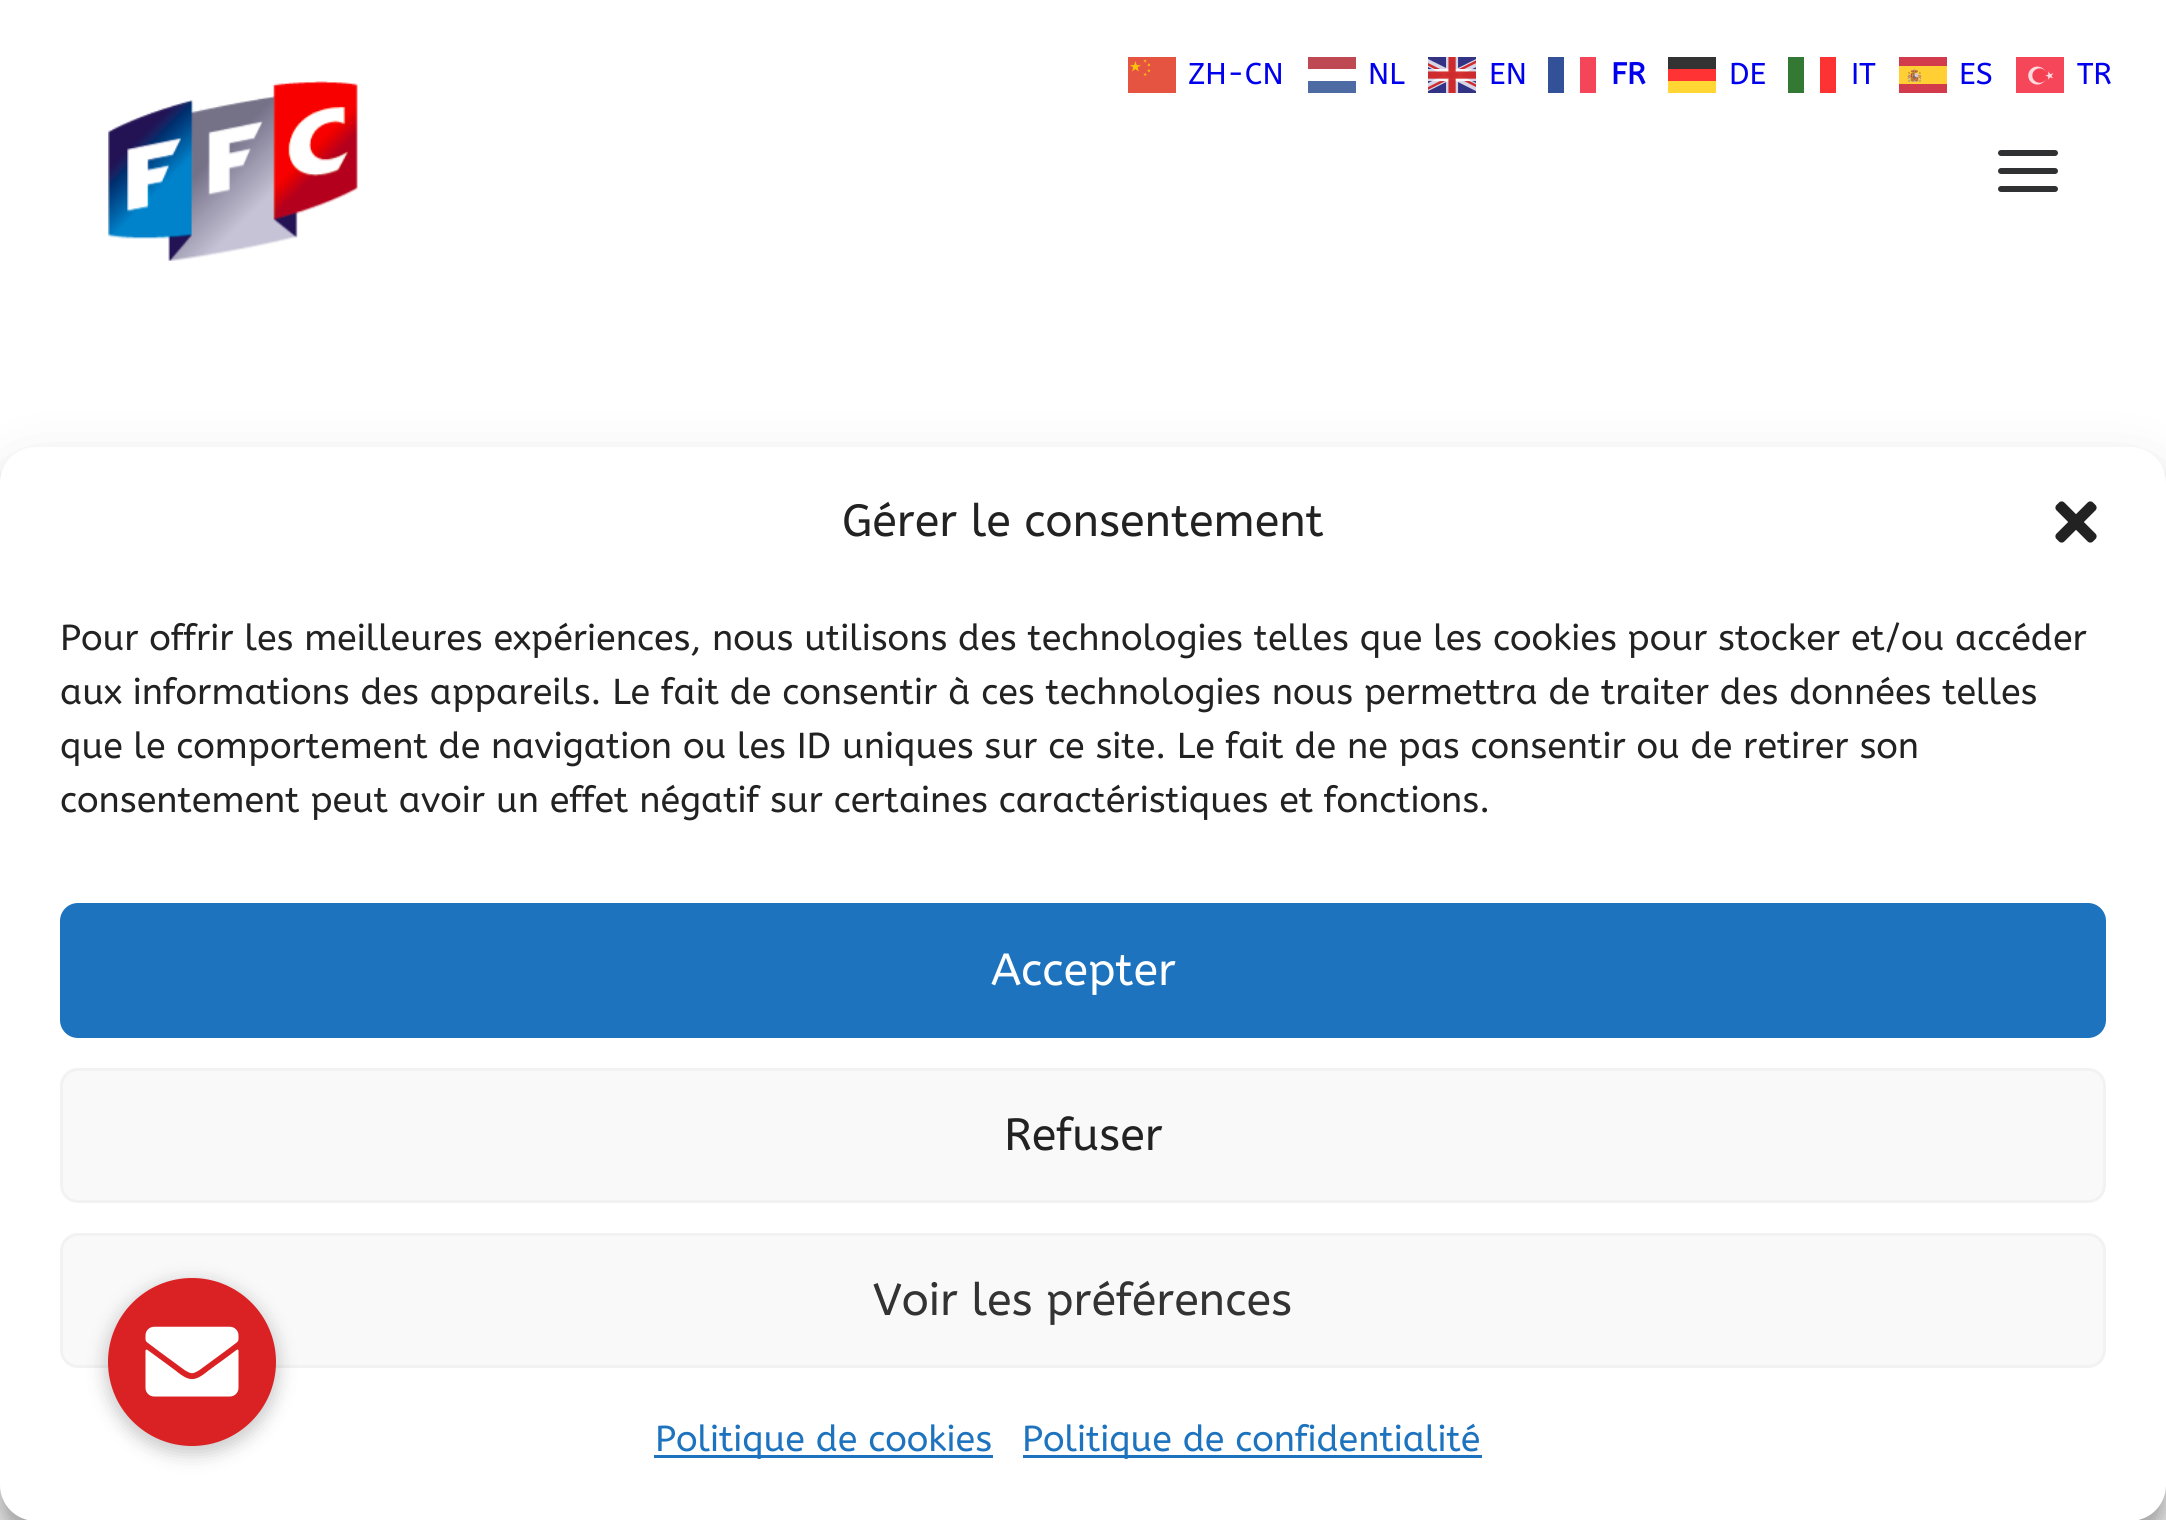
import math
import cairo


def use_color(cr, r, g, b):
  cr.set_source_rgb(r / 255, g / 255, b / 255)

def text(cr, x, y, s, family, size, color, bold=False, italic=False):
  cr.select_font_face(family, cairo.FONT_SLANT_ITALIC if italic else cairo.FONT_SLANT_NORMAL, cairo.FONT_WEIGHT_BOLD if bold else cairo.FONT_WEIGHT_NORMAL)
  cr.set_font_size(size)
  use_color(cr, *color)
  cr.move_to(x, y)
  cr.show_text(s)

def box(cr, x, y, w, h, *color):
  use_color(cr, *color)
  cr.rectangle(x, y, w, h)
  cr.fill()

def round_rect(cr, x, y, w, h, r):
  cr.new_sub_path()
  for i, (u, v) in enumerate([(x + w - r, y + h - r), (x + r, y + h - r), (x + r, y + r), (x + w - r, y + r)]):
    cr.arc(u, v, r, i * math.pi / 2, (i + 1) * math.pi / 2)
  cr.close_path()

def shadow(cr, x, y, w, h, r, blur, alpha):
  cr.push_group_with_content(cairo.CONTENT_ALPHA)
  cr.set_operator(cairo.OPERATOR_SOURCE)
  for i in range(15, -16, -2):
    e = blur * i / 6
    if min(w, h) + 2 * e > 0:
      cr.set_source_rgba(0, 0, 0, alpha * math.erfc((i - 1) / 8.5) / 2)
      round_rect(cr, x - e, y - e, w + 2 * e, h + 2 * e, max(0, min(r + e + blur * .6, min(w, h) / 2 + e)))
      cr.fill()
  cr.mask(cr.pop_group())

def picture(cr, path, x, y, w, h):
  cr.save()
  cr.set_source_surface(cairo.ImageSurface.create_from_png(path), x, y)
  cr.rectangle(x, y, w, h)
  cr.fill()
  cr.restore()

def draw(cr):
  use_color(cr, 255, 255, 255)
  cr.paint()
  picture(cr, "img_01.png", 1128, 57, 48, 36)
  box(cr, 1308, 81, 48, 12, 77, 107, 162)
  box(cr, 1308, 57, 48, 12, 190, 73, 83)
  picture(cr, "img_02.png", 1428, 57, 48, 36)
  box(cr, 1548, 57, 16, 36, 51, 81, 153)
  box(cr, 1580, 57, 16, 36, 245, 70, 89)
  box(cr, 1668, 81, 48, 12, 255, 214, 51)
  box(cr, 1668, 57, 48, 12, 51, 51, 51)
  box(cr, 1668, 69, 48, 12, 255, 51, 51)
  box(cr, 1788, 57, 16, 36, 51, 121, 51)
  box(cr, 1820, 57, 16, 36, 253, 51, 51)
  picture(cr, "img_03.png", 1899, 57, 48, 36)
  picture(cr, "img_04.png", 2016, 57, 48, 36)
  picture(cr, "img_05.png", 108, 81, 250, 180)
  use_color(cr, 48, 49, 51)
  round_rect(cr, 1998, 168, 60, 6, 3)
  cr.fill()
  round_rect(cr, 1998, 150, 60, 6, 3)
  cr.fill()
  round_rect(cr, 1998, 186, 60, 6, 3)
  cr.fill()
  box(cr, 0, 1485, 2166, 35, 247, 247, 247)
  use_color(cr, 0, 0, 0)
  shadow(cr, 0, 465, 2166, 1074, 36, 9, 0.23)
  shadow(cr, 0, 477, 2166, 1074, 36, 30, 0.19)
  use_color(cr, 128, 128, 128)
  shadow(cr, 1956, 1299, 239, 180, 6, 7.5, 1)
  use_color(cr, 255, 255, 255)
  round_rect(cr, 0, 447, 2166, 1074, 36)
  cr.fill()
  picture(cr, "img_06.png", 2055, 501, 42, 42)
  use_color(cr, 30, 115, 190)
  round_rect(cr, 61.5, 904.5, 2043, 132, 16.5)
  cr.fill_preserve()
  cr.set_line_width(3)
  cr.stroke()
  use_color(cr, 249, 249, 249)
  round_rect(cr, 61.5, 1069.5, 2043, 132, 16.5)
  cr.fill_preserve()
  use_color(cr, 242, 242, 242)
  cr.stroke()
  use_color(cr, 249, 249, 249)
  round_rect(cr, 61.5, 1234.5, 2043, 132, 16.5)
  cr.fill_preserve()
  use_color(cr, 242, 242, 242)
  cr.stroke()
  box(cr, 654, 1455, 339, 3, 30, 115, 190)
  box(cr, 1023, 1455, 459, 3, 30, 115, 190)
  use_color(cr, 0, 0, 0)
  shadow(cr, 105, 1281, 174, 174, 87, 9, 0.2)
  use_color(cr, 218, 33, 35)
  cr.arc(192, 1362, 84, 0, 2 * math.pi)
  cr.fill()
  picture(cr, "img_07.png", 145, 1326, 94, 71)
  text(cr, 1188, 84, "ZH-CN", "ABeeZee", 30, (0, 0, 238))
  text(cr, 1368, 84, "NL", "ABeeZee", 30, (0, 0, 238))
  text(cr, 1489, 84, "EN", "ABeeZee", 30, (0, 0, 238))
  text(cr, 1611, 84, "FR", "ABeeZee", 30, (0, 0, 238), bold=True)
  text(cr, 1729, 84, "DE", "ABeeZee", 30, (0, 0, 238))
  text(cr, 1851, 84, "IT", "ABeeZee", 30, (0, 0, 238))
  text(cr, 1959, 84, "ES", "ABeeZee", 30, (0, 0, 238))
  text(cr, 2077, 84, "TR", "ABeeZee", 30, (0, 0, 238))
  text(cr, 842, 536, "Gérer le consentement", "ABeeZee", 45, (34, 34, 34))
  text(cr, 60, 650, "Pour offrir les meilleures expériences, nous utilisons des technologies telles que les cookies pour stocker et/ou accéder", "ABeeZee", 36, (34, 34, 34))
  text(cr, 60, 704, "aux informations des appareils. Le fait de consentir à ces technologies nous permettra de traiter des données telles", "ABeeZee", 36, (34, 34, 34))
  text(cr, 60, 758, "que le comportement de navigation ou les ID uniques sur ce site. Le fait de ne pas consentir ou de retirer son", "ABeeZee", 36, (34, 34, 34))
  text(cr, 60, 812, "consentement peut avoir un effet négatif sur certaines caractéristiques et fonctions.", "ABeeZee", 36, (34, 34, 34))
  text(cr, 991, 985, "Accepter", "ABeeZee", 45, (255, 255, 255))
  text(cr, 1004, 1150, "Refuser", "ABeeZee", 45, (34, 34, 34))
  text(cr, 873, 1315, "Voir les préférences", "ABeeZee", 45, (51, 51, 51))
  text(cr, 655, 1451, "Politique de cookies", "ABeeZee", 36, (30, 115, 190))
  text(cr, 1022, 1451, "Politique de confidentialité", "ABeeZee", 36, (30, 115, 190))


surface = cairo.ImageSurface(cairo.FORMAT_RGB24, 2166, 1520)
cr = cairo.Context(surface)
options = cairo.FontOptions()
options.set_hint_metrics(cairo.HINT_METRICS_OFF)
options.set_hint_style(cairo.HINT_STYLE_NONE)
cr.set_font_options(options)
cr.set_miter_limit(4)
draw(cr)
surface.write_to_png("out.png")
